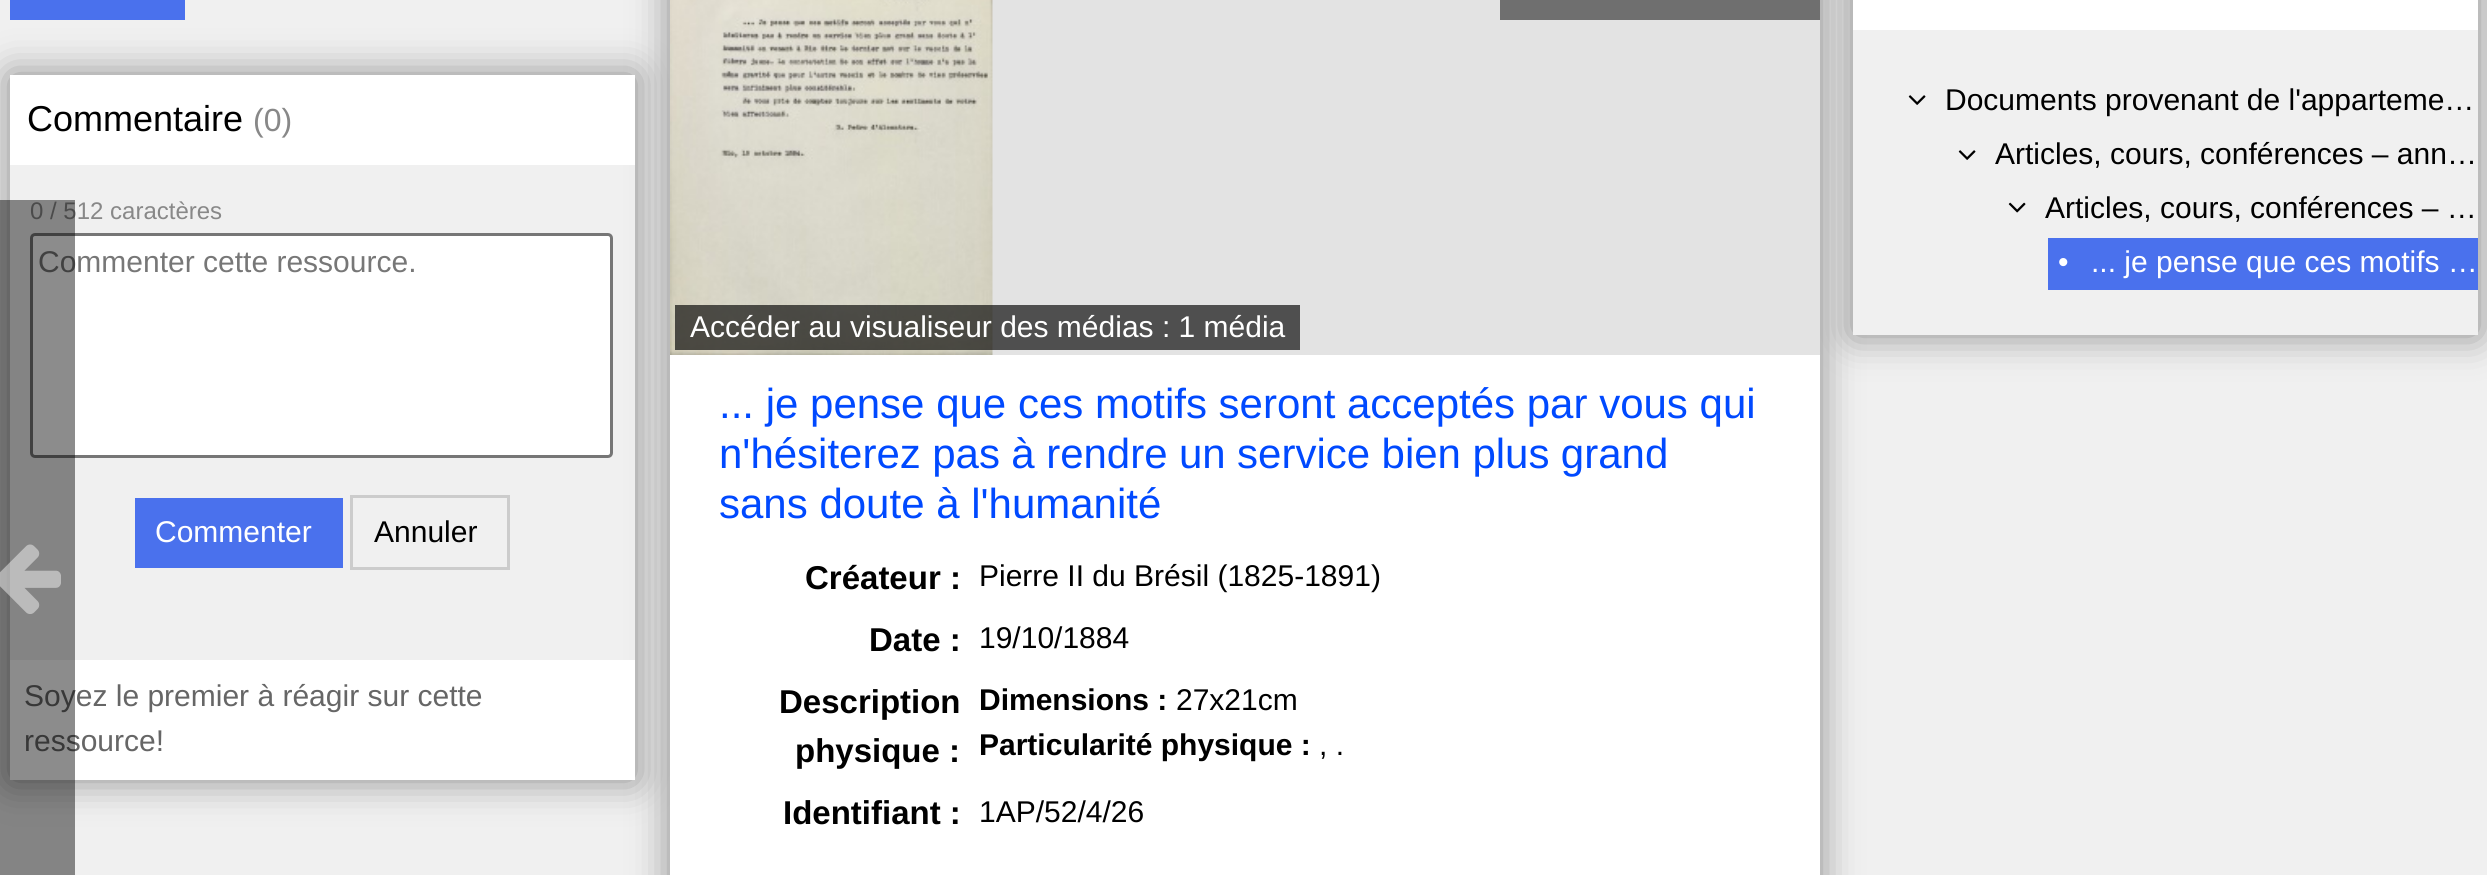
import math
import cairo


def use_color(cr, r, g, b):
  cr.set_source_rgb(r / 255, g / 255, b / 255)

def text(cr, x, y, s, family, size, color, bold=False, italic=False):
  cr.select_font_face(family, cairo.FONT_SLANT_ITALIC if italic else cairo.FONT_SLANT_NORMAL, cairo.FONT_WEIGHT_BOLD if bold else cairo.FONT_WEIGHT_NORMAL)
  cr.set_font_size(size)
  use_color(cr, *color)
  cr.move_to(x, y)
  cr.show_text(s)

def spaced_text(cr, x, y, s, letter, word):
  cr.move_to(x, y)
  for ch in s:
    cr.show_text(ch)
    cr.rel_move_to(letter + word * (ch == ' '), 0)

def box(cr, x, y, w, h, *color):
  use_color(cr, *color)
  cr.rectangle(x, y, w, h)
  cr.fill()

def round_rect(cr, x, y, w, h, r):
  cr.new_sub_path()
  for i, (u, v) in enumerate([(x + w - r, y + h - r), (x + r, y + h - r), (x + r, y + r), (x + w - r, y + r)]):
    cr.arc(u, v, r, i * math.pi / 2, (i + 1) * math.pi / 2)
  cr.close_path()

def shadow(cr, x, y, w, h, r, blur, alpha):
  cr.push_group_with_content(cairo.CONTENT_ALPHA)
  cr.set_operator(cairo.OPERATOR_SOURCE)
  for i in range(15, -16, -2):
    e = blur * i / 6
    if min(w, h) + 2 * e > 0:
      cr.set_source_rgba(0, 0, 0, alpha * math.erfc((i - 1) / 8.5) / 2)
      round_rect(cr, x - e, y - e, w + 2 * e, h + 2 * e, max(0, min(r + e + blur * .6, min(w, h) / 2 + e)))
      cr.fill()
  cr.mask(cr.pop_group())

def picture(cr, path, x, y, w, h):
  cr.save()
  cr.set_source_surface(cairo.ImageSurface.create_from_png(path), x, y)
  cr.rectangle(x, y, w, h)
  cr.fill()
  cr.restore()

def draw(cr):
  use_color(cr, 240, 240, 240)
  cr.paint()
  cr.save()
  cr.set_fill_rule(cairo.FILL_RULE_EVEN_ODD)
  cr.new_path()
  cr.move_to(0, 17)
  cr.line_to(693, 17)
  cr.line_to(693, 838)
  cr.line_to(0, 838)
  cr.close_path()
  cr.move_to(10, 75)
  cr.line_to(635, 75)
  cr.line_to(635, 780)
  cr.line_to(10, 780)
  cr.close_path()
  cr.clip()
  use_color(cr, 136, 136, 136)
  shadow(cr, 10, 75, 625, 705, 0, 19, 1)
  cr.restore()
  box(cr, 10, 0, 175, 20, 74, 113, 237)
  use_color(cr, 136, 136, 136)
  shadow(cr, 670, -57, 1150, 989, 0, 19, 1)
  box(cr, 10, 75, 625, 90, 255, 255, 255)
  round_rect(cr, 31.5, 234.5, 580, 222, 3.5)
  cr.fill_preserve()
  use_color(cr, 118, 118, 118)
  cr.set_line_width(3)
  cr.stroke()
  box(cr, 135, 498, 208, 70, 74, 113, 237)
  cr.rectangle(351.5, 496.5, 157, 72)
  use_color(cr, 204, 204, 204)
  cr.stroke()
  box(cr, 10, 660, 625, 120, 255, 255, 255)
  use_color(cr, 136, 136, 136)
  shadow(cr, 1853, -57, 625, 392, 0, 19, 1)
  box(cr, 670, 355, 1150, 520, 255, 255, 255)
  box(cr, 992, 0, 828, 355, 227, 227, 227)
  box(cr, 1500, 0, 160, 20, 111, 111, 111)
  box(cr, 1660, 0, 160, 20, 111, 111, 111)
  picture(cr, "img_01.png", 670, 0, 323, 355)
  cr.set_source_rgba(0, 0, 0, 0.65)
  cr.rectangle(675, 305, 625, 45)
  cr.fill()
  box(cr, 1853, 0, 625, 30, 255, 255, 255)
  box(cr, 1853, 30, 625, 305, 240, 240, 240)
  picture(cr, "img_02.png", 1908, 95, 18, 10)
  picture(cr, "img_02.png", 1958, 150, 18, 10)
  picture(cr, "img_03.png", 2008, 202, 18, 11)
  box(cr, 2048, 238, 430, 52, 74, 113, 237)
  text(cr, 27, 131, "Commentaire", "Liberation Sans", 36, (0, 0, 0))
  text(cr, 253, 131, "(0)", "Liberation Sans", 32, (136, 136, 136))
  text(cr, 30, 219, "0 / 512 caractères", "Liberation Sans", 24, (136, 136, 136))
  text(cr, 38, 272, "Commenter cette ressource.", "Liberation Sans", 30, (119, 119, 119))
  text(cr, 155, 542, "Commenter", "Liberation Sans", 30, (255, 255, 255))
  text(cr, 374, 542, "Annuler", "Liberation Sans", 30, (0, 0, 0))
  text(cr, 24, 706, "Soyez le premier à réagir sur cette", "Liberation Sans", 30, (102, 102, 102))
  text(cr, 24, 751, "ressource!", "Liberation Sans", 30, (102, 102, 102))
  text(cr, 690, 337, "Accéder au visualiseur des médias : 1 média", "Liberation Sans", 30, (255, 255, 255))
  text(cr, 719, 418, "... je pense que ces motifs seront acceptés par vous qui", "Liberation Sans", 42, (0, 73, 255))
  spaced_text(cr, 719, 468, "n'hésiterez pas à rendre un service bien plus grand", 0, -0.25)
  text(cr, 719, 518, "sans doute à l'humanité", "Liberation Sans", 42, (0, 73, 255))
  text(cr, 805, 589, "Créateur :", "Liberation Sans", 33, (0, 0, 0), bold=True)
  text(cr, 979, 586, "Pierre II du Brésil (1825-1891)", "Liberation Sans", 30, (0, 0, 0))
  text(cr, 869, 651, "Date :", "Liberation Sans", 33, (0, 0, 0), bold=True)
  text(cr, 979, 648, "19/10/1884", "Liberation Sans", 30, (0, 0, 0))
  text(cr, 779, 713, "Description", "Liberation Sans", 33, (0, 0, 0), bold=True)
  text(cr, 795, 762, "physique :", "Liberation Sans", 33, (0, 0, 0), bold=True)
  text(cr, 979, 710, "Dimensions :", "Liberation Sans", 30, (0, 0, 0), bold=True)
  text(cr, 1176, 710, "27x21cm", "Liberation Sans", 30, (0, 0, 0))
  text(cr, 979, 755, "Particularité physique :", "Liberation Sans", 30, (0, 0, 0), bold=True)
  text(cr, 1319, 755, ", .", "Liberation Sans", 30, (0, 0, 0))
  text(cr, 783, 824, "Identifiant :", "Liberation Sans", 33, (0, 0, 0), bold=True)
  text(cr, 979, 822, "1AP/52/4/26", "Liberation Sans", 30, (0, 0, 0))
  text(cr, 1945, 110, "Documents provenant de l'apparteme…", "Liberation Sans", 30, (0, 0, 0))
  text(cr, 1995, 164, "Articles, cours, conférences – ann…", "Liberation Sans", 30, (0, 0, 0))
  text(cr, 2045, 218, "Articles, cours, conférences – …", "Liberation Sans", 30, (0, 0, 0))
  text(cr, 2058, 272, "•", "Liberation Sans", 30, (255, 255, 255))
  text(cr, 2091, 272, "... je pense que ces motifs …", "Liberation Sans", 30, (255, 255, 255))
  cr.set_source_rgba(0, 0, 0, 0.45)
  cr.rectangle(0, 200, 75, 675)
  cr.fill()
  picture(cr, "img_04.png", 0, 544, 61, 70)


surface = cairo.ImageSurface(cairo.FORMAT_RGB24, 2487, 875)
cr = cairo.Context(surface)
options = cairo.FontOptions()
options.set_hint_metrics(cairo.HINT_METRICS_OFF)
options.set_hint_style(cairo.HINT_STYLE_NONE)
cr.set_font_options(options)
cr.set_miter_limit(4)
draw(cr)
surface.write_to_png("out.png")
